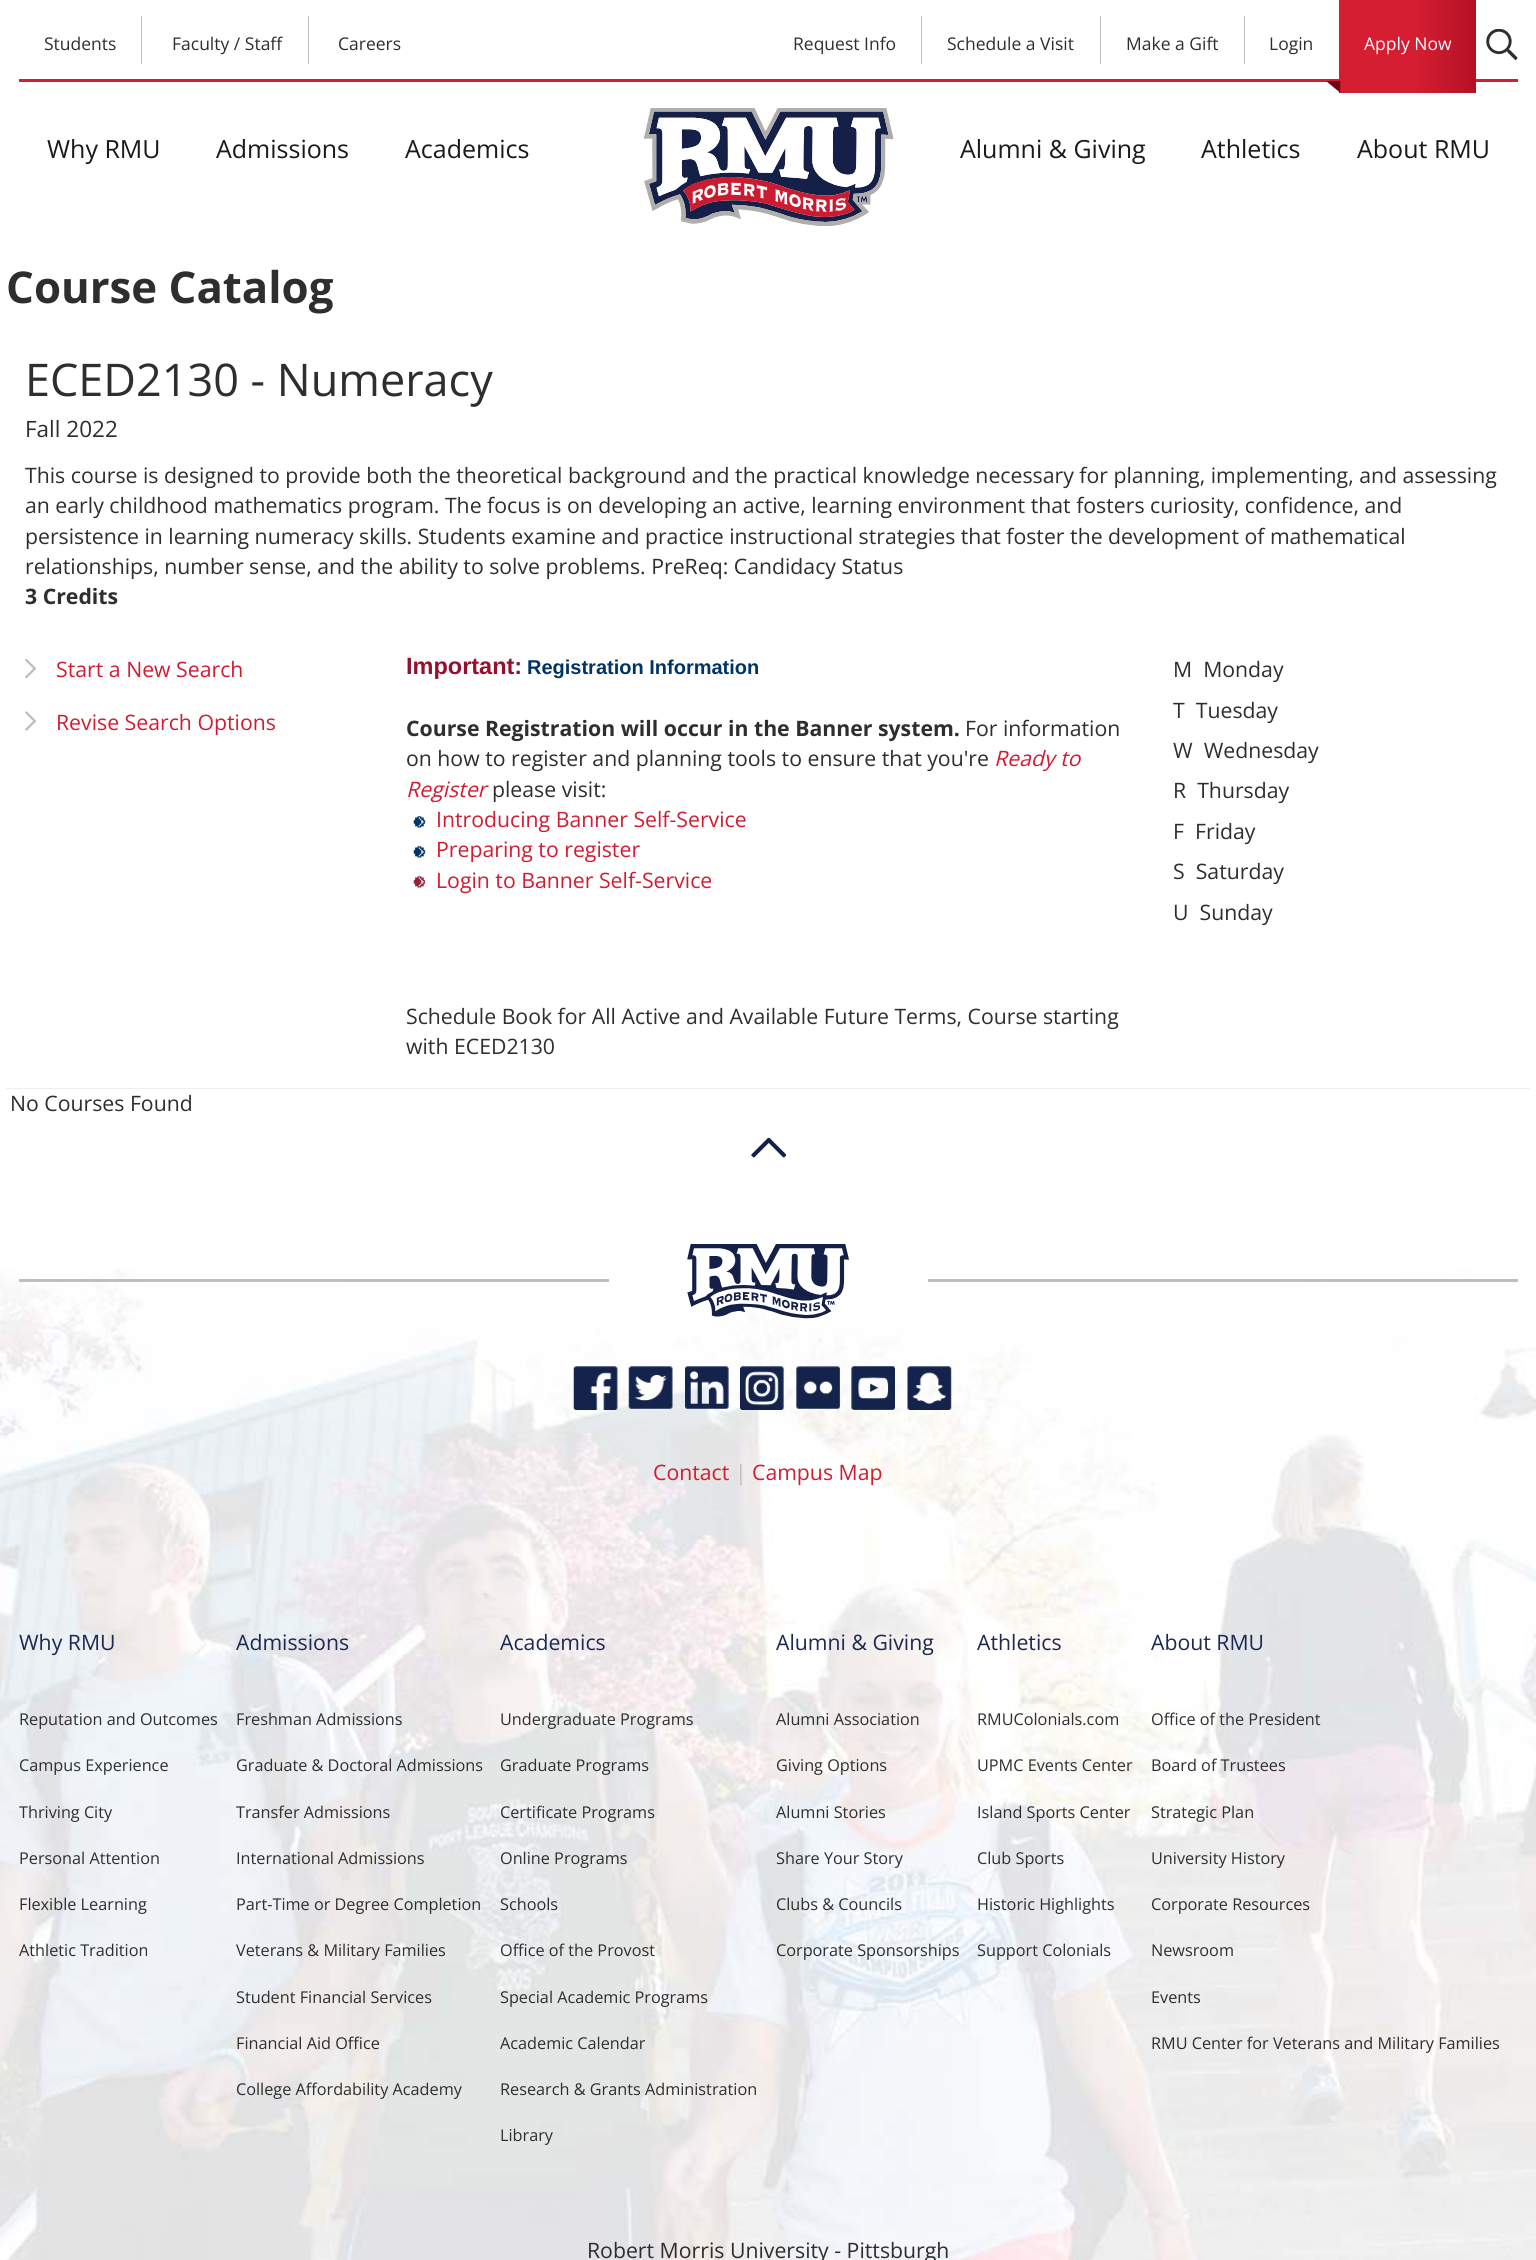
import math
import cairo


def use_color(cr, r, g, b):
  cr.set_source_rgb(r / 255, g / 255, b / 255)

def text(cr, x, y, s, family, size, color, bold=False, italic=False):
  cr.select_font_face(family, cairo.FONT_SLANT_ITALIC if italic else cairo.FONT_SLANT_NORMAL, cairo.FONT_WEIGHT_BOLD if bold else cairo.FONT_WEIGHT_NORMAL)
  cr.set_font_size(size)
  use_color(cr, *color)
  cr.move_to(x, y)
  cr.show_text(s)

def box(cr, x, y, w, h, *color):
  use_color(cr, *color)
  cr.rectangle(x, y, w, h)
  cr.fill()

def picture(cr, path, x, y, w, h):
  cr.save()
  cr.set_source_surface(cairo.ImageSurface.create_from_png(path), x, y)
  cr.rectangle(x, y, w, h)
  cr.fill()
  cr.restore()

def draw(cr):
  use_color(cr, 255, 255, 255)
  cr.paint()
  box(cr, 19, 79, 1499, 3, 214, 30, 51)
  box(cr, 141, 16, 1, 48, 192, 192, 192)
  box(cr, 308, 16, 1, 48, 192, 192, 192)
  box(cr, 921, 16, 1, 48, 192, 192, 192)
  box(cr, 1100, 16, 1, 48, 192, 192, 192)
  box(cr, 1244, 16, 1, 48, 192, 192, 192)
  gradient = cairo.LinearGradient(1339, 46, 1476, 46)
  gradient.add_color_stop_rgba(0.55, 0.839, 0.118, 0.2, 1)
  gradient.add_color_stop_rgba(1, 0.706, 0.063, 0.141, 1)
  cr.set_source(gradient)
  cr.rectangle(1339, 0, 137, 93)
  cr.fill()
  picture(cr, "img_01.png", 1326, 80, 15, 13)
  picture(cr, "img_02.png", 1486, 29, 32, 31)
  picture(cr, "img_03.png", 644, 108, 250, 118)
  picture(cr, "img_04.png", 25, 659, 11, 20)
  picture(cr, "img_05.png", 25, 711, 11, 20)
  picture(cr, "img_06.png", 413, 816, 13, 12)
  picture(cr, "img_06.png", 413, 846, 13, 12)
  picture(cr, "img_07.png", 413, 876, 13, 12)
  box(cr, 6, 1088, 1524, 1, 239, 239, 239)
  picture(cr, "img_08.png", 0, 1269, 1536, 991)
  picture(cr, "img_09.png", 751, 1138, 35, 20)
  box(cr, 19, 1279, 590, 3, 193, 190, 185)
  picture(cr, "img_10.png", 687, 1244, 162, 75)
  box(cr, 928, 1279, 590, 3, 193, 190, 185)
  picture(cr, "img_11.png", 573, 1366, 45, 44)
  picture(cr, "img_12.png", 628, 1366, 45, 43)
  picture(cr, "img_13.png", 685, 1366, 44, 43)
  picture(cr, "img_14.png", 740, 1366, 44, 44)
  picture(cr, "img_15.png", 796, 1366, 44, 43)
  picture(cr, "img_16.png", 851, 1366, 44, 44)
  picture(cr, "img_17.png", 907, 1366, 45, 44)
  text(cr, 44, 50, "Students", "Open Sans", 17.5, (46, 46, 46))
  text(cr, 172, 50, "Faculty / Staff", "Open Sans", 17.5, (46, 46, 46))
  text(cr, 338, 50, "Careers", "Open Sans", 17.5, (46, 46, 46))
  text(cr, 793, 50, "Request Info", "Open Sans", 17.5, (46, 46, 46))
  text(cr, 947, 50, "Schedule a Visit", "Open Sans", 17.5, (46, 46, 46))
  text(cr, 1126, 50, "Make a Gift", "Open Sans", 17.5, (46, 46, 46))
  text(cr, 1269, 50, "Login", "Open Sans", 17.5, (46, 46, 46))
  text(cr, 1364, 50, "Apply Now", "Open Sans", 17.5, (255, 255, 255))
  text(cr, 47, 158, "Why RMU", "Open Sans", 25, (26, 26, 26))
  text(cr, 216, 158, "Admissions", "Open Sans", 25, (26, 26, 26))
  text(cr, 405, 158, "Academics", "Open Sans", 25, (26, 26, 26))
  text(cr, 960, 158, "Alumni & Giving", "Open Sans", 25, (26, 26, 26))
  text(cr, 1201, 158, "Athletics", "Open Sans", 25, (26, 26, 26))
  text(cr, 1357, 158, "About RMU", "Open Sans", 25, (26, 26, 26))
  text(cr, 6, 303, "Course Catalog", "Open Sans", 43.75, (46, 46, 46), bold=True)
  text(cr, 25, 396, "ECED2130 - Numeracy", "Open Sans", 45, (46, 46, 46))
  text(cr, 25, 437, "Fall 2022", "Open Sans", 22.5, (46, 46, 46))
  text(cr, 25, 483, "This course is designed to provide both the theoretical background and the practical knowledge necessary for planning, implementing, and assessing", "Open Sans", 21.25, (46, 46, 46))
  text(cr, 25, 513, "an early childhood mathematics program. The focus is on developing an active, learning environment that fosters curiosity, confidence, and", "Open Sans", 21.25, (46, 46, 46))
  text(cr, 25, 544, "persistence in learning numeracy skills. Students examine and practice instructional strategies that foster the development of mathematical", "Open Sans", 21.25, (46, 46, 46))
  text(cr, 25, 574, "relationships, number sense, and the ability to solve problems. PreReq: Candidacy Status", "Open Sans", 21.25, (46, 46, 46))
  text(cr, 25, 604, "3 Credits", "Open Sans", 21.25, (46, 46, 46), bold=True)
  text(cr, 56, 677, "Start a New Search", "Open Sans", 21.25, (209, 28, 49))
  text(cr, 56, 730, "Revise Search Options", "Open Sans", 21.25, (209, 28, 49))
  text(cr, 406, 674, "Important:", "Liberation Sans", 23.5, (149, 15, 46), bold=True)
  text(cr, 527, 674, "Registration Information", "Liberation Sans", 20, (0, 51, 102), bold=True)
  text(cr, 406, 736, "Course Registration will occur in the Banner system.", "Open Sans", 21.25, (46, 46, 46), bold=True)
  text(cr, 965, 736, "For information", "Open Sans", 21.25, (46, 46, 46))
  text(cr, 406, 766, "on how to register and planning tools to ensure that you're", "Open Sans", 21.25, (46, 46, 46))
  text(cr, 994, 766, "Ready to", "Open Sans", 21.25, (209, 28, 49), italic=True)
  text(cr, 406, 797, "Register", "Open Sans", 21.25, (209, 28, 49), italic=True)
  text(cr, 492, 797, "please visit:", "Open Sans", 21.25, (46, 46, 46))
  text(cr, 436, 827, "Introducing Banner Self-Service", "Open Sans", 21.25, (209, 28, 49))
  text(cr, 436, 857, "Preparing to register", "Open Sans", 21.25, (209, 28, 49))
  text(cr, 436, 888, "Login to Banner Self-Service", "Open Sans", 21.25, (209, 28, 49))
  text(cr, 1173, 677, "M  Monday", "Open Sans", 21.25, (46, 46, 46))
  text(cr, 1173, 718, "T  Tuesday", "Open Sans", 21.25, (46, 46, 46))
  text(cr, 1173, 758, "W  Wednesday", "Open Sans", 21.25, (46, 46, 46))
  text(cr, 1173, 798, "R  Thursday", "Open Sans", 21.25, (46, 46, 46))
  text(cr, 1173, 839, "F  Friday", "Open Sans", 21.25, (46, 46, 46))
  text(cr, 1173, 879, "S  Saturday", "Open Sans", 21.25, (46, 46, 46))
  text(cr, 1173, 920, "U  Sunday", "Open Sans", 21.25, (46, 46, 46))
  text(cr, 406, 1024, "Schedule Book for All Active and Available Future Terms, Course starting", "Open Sans", 21.25, (46, 46, 46))
  text(cr, 406, 1054, "with ECED2130", "Open Sans", 21.25, (46, 46, 46))
  text(cr, 10, 1111, "No Courses Found", "Open Sans", 21.25, (46, 46, 46))
  text(cr, 653, 1480, "Contact", "Open Sans", 21.25, (209, 28, 49))
  text(cr, 735, 1480, "|", "Open Sans", 21.25, (193, 190, 185))
  text(cr, 752, 1480, "Campus Map", "Open Sans", 21.25, (209, 28, 49))
  text(cr, 19, 1650, "Why RMU", "Open Sans", 21.25, (29, 41, 81))
  text(cr, 19, 1725, "Reputation and Outcomes", "Open Sans", 16.25, (46, 46, 46))
  text(cr, 19, 1771, "Campus Experience", "Open Sans", 16.25, (46, 46, 46))
  text(cr, 19, 1818, "Thriving City", "Open Sans", 16.25, (46, 46, 46))
  text(cr, 19, 1864, "Personal Attention", "Open Sans", 16.25, (46, 46, 46))
  text(cr, 19, 1910, "Flexible Learning", "Open Sans", 16.25, (46, 46, 46))
  text(cr, 19, 1956, "Athletic Tradition", "Open Sans", 16.25, (46, 46, 46))
  text(cr, 236, 1650, "Admissions", "Open Sans", 21.25, (29, 41, 81))
  text(cr, 236, 1725, "Freshman Admissions", "Open Sans", 16.25, (46, 46, 46))
  text(cr, 236, 1771, "Graduate & Doctoral Admissions", "Open Sans", 16.25, (46, 46, 46))
  text(cr, 236, 1818, "Transfer Admissions", "Open Sans", 16.25, (46, 46, 46))
  text(cr, 236, 1864, "International Admissions", "Open Sans", 16.25, (46, 46, 46))
  text(cr, 236, 1910, "Part-Time or Degree Completion", "Open Sans", 16.25, (46, 46, 46))
  text(cr, 236, 1956, "Veterans & Military Families", "Open Sans", 16.25, (46, 46, 46))
  text(cr, 236, 2003, "Student Financial Services", "Open Sans", 16.25, (46, 46, 46))
  text(cr, 236, 2049, "Financial Aid Office", "Open Sans", 16.25, (46, 46, 46))
  text(cr, 236, 2095, "College Affordability Academy", "Open Sans", 16.25, (46, 46, 46))
  text(cr, 500, 1650, "Academics", "Open Sans", 21.25, (29, 41, 81))
  text(cr, 500, 1725, "Undergraduate Programs", "Open Sans", 16.25, (46, 46, 46))
  text(cr, 500, 1771, "Graduate Programs", "Open Sans", 16.25, (46, 46, 46))
  text(cr, 500, 1818, "Certificate Programs", "Open Sans", 16.25, (46, 46, 46))
  text(cr, 500, 1864, "Online Programs", "Open Sans", 16.25, (46, 46, 46))
  text(cr, 500, 1910, "Schools", "Open Sans", 16.25, (46, 46, 46))
  text(cr, 500, 1956, "Office of the Provost", "Open Sans", 16.25, (46, 46, 46))
  text(cr, 500, 2003, "Special Academic Programs", "Open Sans", 16.25, (46, 46, 46))
  text(cr, 500, 2049, "Academic Calendar", "Open Sans", 16.25, (46, 46, 46))
  text(cr, 500, 2095, "Research & Grants Administration", "Open Sans", 16.25, (46, 46, 46))
  text(cr, 500, 2141, "Library", "Open Sans", 16.25, (46, 46, 46))
  text(cr, 776, 1650, "Alumni & Giving", "Open Sans", 21.25, (29, 41, 81))
  text(cr, 776, 1725, "Alumni Association", "Open Sans", 16.25, (46, 46, 46))
  text(cr, 776, 1771, "Giving Options", "Open Sans", 16.25, (46, 46, 46))
  text(cr, 776, 1818, "Alumni Stories", "Open Sans", 16.25, (46, 46, 46))
  text(cr, 776, 1864, "Share Your Story", "Open Sans", 16.25, (46, 46, 46))
  text(cr, 776, 1910, "Clubs & Councils", "Open Sans", 16.25, (46, 46, 46))
  text(cr, 776, 1956, "Corporate Sponsorships", "Open Sans", 16.25, (46, 46, 46))
  text(cr, 977, 1650, "Athletics", "Open Sans", 21.25, (29, 41, 81))
  text(cr, 977, 1725, "RMUColonials.com", "Open Sans", 16.25, (46, 46, 46))
  text(cr, 977, 1771, "UPMC Events Center", "Open Sans", 16.25, (46, 46, 46))
  text(cr, 977, 1818, "Island Sports Center", "Open Sans", 16.25, (46, 46, 46))
  text(cr, 977, 1864, "Club Sports", "Open Sans", 16.25, (46, 46, 46))
  text(cr, 977, 1910, "Historic Highlights", "Open Sans", 16.25, (46, 46, 46))
  text(cr, 977, 1956, "Support Colonials", "Open Sans", 16.25, (46, 46, 46))
  text(cr, 1151, 1650, "About RMU", "Open Sans", 21.25, (29, 41, 81))
  text(cr, 1151, 1725, "Office of the President", "Open Sans", 16.25, (46, 46, 46))
  text(cr, 1151, 1771, "Board of Trustees", "Open Sans", 16.25, (46, 46, 46))
  text(cr, 1151, 1818, "Strategic Plan", "Open Sans", 16.25, (46, 46, 46))
  text(cr, 1151, 1864, "University History", "Open Sans", 16.25, (46, 46, 46))
  text(cr, 1151, 1910, "Corporate Resources", "Open Sans", 16.25, (46, 46, 46))
  text(cr, 1151, 1956, "Newsroom", "Open Sans", 16.25, (46, 46, 46))
  text(cr, 1151, 2003, "Events", "Open Sans", 16.25, (46, 46, 46))
  text(cr, 1151, 2049, "RMU Center for Veterans and Military Families", "Open Sans", 16.25, (46, 46, 46))
  text(cr, 587, 2258, "Robert Morris University - Pittsburgh", "Open Sans", 21.25, (46, 46, 46))


surface = cairo.ImageSurface(cairo.FORMAT_RGB24, 1536, 2260)
cr = cairo.Context(surface)
options = cairo.FontOptions()
options.set_hint_metrics(cairo.HINT_METRICS_OFF)
options.set_hint_style(cairo.HINT_STYLE_NONE)
cr.set_font_options(options)
cr.set_miter_limit(4)
draw(cr)
surface.write_to_png("out.png")
